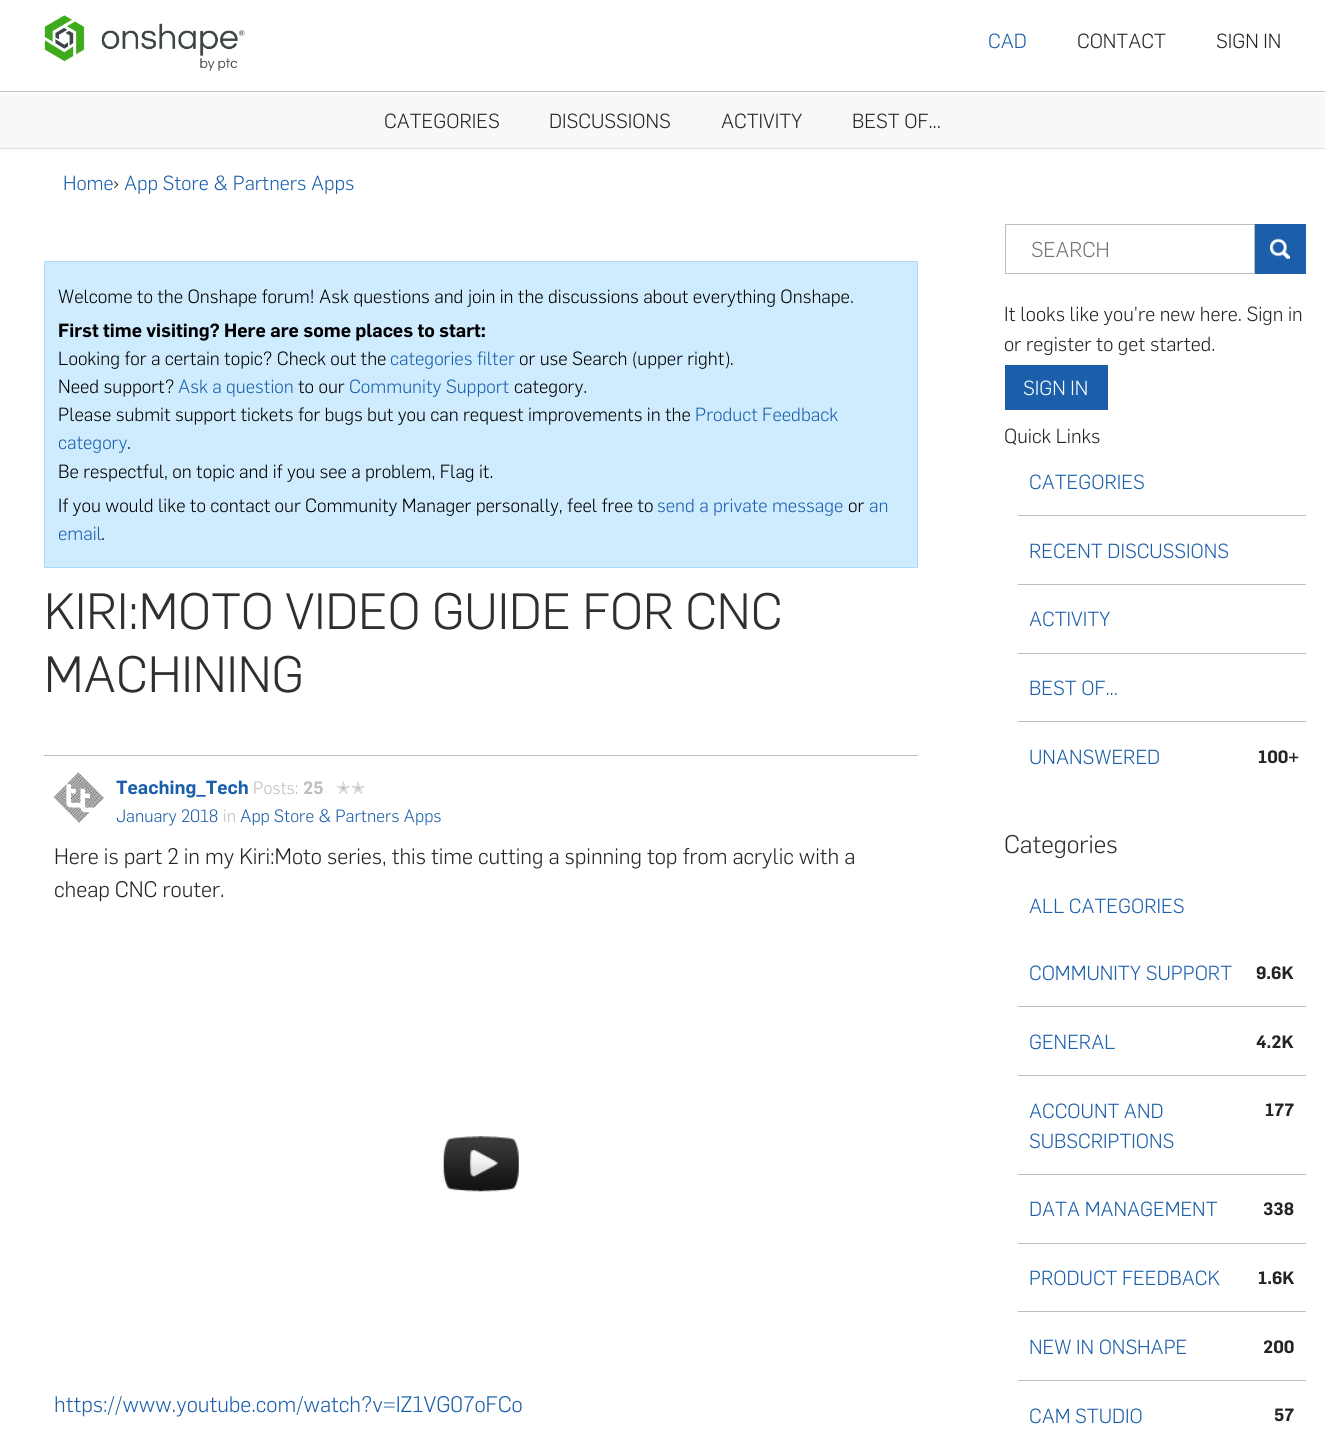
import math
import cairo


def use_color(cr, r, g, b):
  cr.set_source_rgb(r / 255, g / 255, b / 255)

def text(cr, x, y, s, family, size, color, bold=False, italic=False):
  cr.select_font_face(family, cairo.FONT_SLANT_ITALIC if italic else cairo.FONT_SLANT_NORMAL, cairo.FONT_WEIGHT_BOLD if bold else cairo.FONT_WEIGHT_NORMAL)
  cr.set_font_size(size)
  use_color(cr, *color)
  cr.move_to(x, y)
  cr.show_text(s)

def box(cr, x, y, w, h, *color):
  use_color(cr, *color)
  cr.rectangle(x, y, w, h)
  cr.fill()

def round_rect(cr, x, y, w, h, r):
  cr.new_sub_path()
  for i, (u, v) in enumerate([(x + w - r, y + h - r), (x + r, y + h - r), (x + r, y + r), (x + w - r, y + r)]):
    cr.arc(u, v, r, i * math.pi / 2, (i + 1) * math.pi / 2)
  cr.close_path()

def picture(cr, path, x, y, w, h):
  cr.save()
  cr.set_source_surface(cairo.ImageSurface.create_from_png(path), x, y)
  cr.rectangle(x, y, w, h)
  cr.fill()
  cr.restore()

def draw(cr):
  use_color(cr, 255, 255, 255)
  cr.paint()
  box(cr, 0, 91, 1325, 1, 190, 190, 190)
  picture(cr, "img_01.png", 44, 15, 201, 56)
  box(cr, 0, 93, 1325, 55, 248, 248, 248)
  box(cr, 0, 148, 1325, 1, 225, 225, 225)
  use_color(cr, 207, 236, 255)
  round_rect(cr, 44.5, 261.5, 873, 306, 0.5)
  cr.fill_preserve()
  use_color(cr, 171, 218, 251)
  cr.set_line_width(1)
  cr.stroke()
  box(cr, 44, 755, 874, 1, 190, 190, 190)
  picture(cr, "img_02.png", 53, 772, 51, 51)
  picture(cr, "img_03.png", 443, 1136, 76, 56)
  cr.rectangle(1005.5, 224.5, 249, 49)
  cr.stroke()
  box(cr, 1255, 224, 51, 50, 27, 95, 170)
  picture(cr, "img_04.png", 1270, 238, 20, 21)
  box(cr, 1005, 365, 103, 45, 27, 95, 170)
  box(cr, 1018, 515, 288, 1, 190, 190, 190)
  box(cr, 1018, 584, 288, 1, 190, 190, 190)
  box(cr, 1018, 653, 288, 1, 190, 190, 190)
  box(cr, 1018, 721, 288, 1, 190, 190, 190)
  box(cr, 1018, 1006, 288, 1, 190, 190, 190)
  box(cr, 1018, 1075, 288, 1, 190, 190, 190)
  box(cr, 1018, 1174, 288, 1, 190, 190, 190)
  box(cr, 1018, 1243, 288, 1, 190, 190, 190)
  box(cr, 1018, 1311, 288, 1, 190, 190, 190)
  box(cr, 1018, 1380, 288, 1, 190, 190, 190)
  text(cr, 988, 48, "CAD", "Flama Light", 20, (27, 95, 170))
  text(cr, 1077, 48, "CONTACT", "Flama Light", 20, (36, 36, 36))
  text(cr, 1216, 48, "SIGN IN", "Flama Light", 20, (36, 36, 36))
  text(cr, 384, 128, "CATEGORIES", "Flama Light", 20, (36, 36, 36))
  text(cr, 549, 128, "DISCUSSIONS", "Flama Light", 20, (36, 36, 36))
  text(cr, 721, 128, "ACTIVITY", "Flama Light", 20, (36, 36, 36))
  text(cr, 852, 128, "BEST OF...", "Flama Light", 20, (36, 36, 36))
  text(cr, 63, 190, "Home", "Flama Light", 20, (27, 95, 170))
  text(cr, 113, 190, "›", "Flama Light", 20, (36, 36, 36))
  text(cr, 124, 190, "App Store & Partners Apps", "Flama Light", 20, (27, 95, 170))
  text(cr, 58, 303, "Welcome to the Onshape forum! Ask questions and join in the discussions about everything Onshape.", "Flama Light", 18.75, (0, 0, 0))
  text(cr, 58, 337, "First time visiting? Here are some places to start:", "Flama SemiBold", 18.75, (0, 0, 0))
  text(cr, 58, 365, "Looking for a certain topic? Check out the", "Flama Light", 18.75, (0, 0, 0))
  text(cr, 390, 365, "categories filter", "Flama Light", 18.75, (27, 95, 170))
  text(cr, 519, 365, "or use Search (upper right).", "Flama Light", 18.75, (0, 0, 0))
  text(cr, 58, 393, "Need support?", "Flama Light", 18.75, (0, 0, 0))
  text(cr, 178, 393, "Ask a question", "Flama Light", 18.75, (27, 95, 170))
  text(cr, 298, 393, "to our", "Flama Light", 18.75, (0, 0, 0))
  text(cr, 349, 393, "Community Support", "Flama Light", 18.75, (27, 95, 170))
  text(cr, 514, 393, "category.", "Flama Light", 18.75, (0, 0, 0))
  text(cr, 58, 421, "Please submit support tickets for bugs but you can request improvements in the", "Flama Light", 18.75, (0, 0, 0))
  text(cr, 695, 421, "Product Feedback", "Flama Light", 18.75, (27, 95, 170))
  text(cr, 58, 449, "category", "Flama Light", 18.75, (27, 95, 170))
  text(cr, 127, 449, ".", "Flama Light", 18.75, (0, 0, 0))
  text(cr, 58, 478, "Be respectful, on topic and if you see a problem, Flag it.", "Flama Light", 18.75, (0, 0, 0))
  text(cr, 58, 512, "If you would like to contact our Community Manager personally, feel free to", "Flama Light", 18.75, (0, 0, 0))
  text(cr, 657, 512, "send a private message", "Flama Light", 18.75, (27, 95, 170))
  text(cr, 848, 512, "or", "Flama Light", 18.75, (0, 0, 0))
  text(cr, 869, 512, "an", "Flama Light", 18.75, (27, 95, 170))
  text(cr, 58, 540, "email", "Flama Light", 18.75, (27, 95, 170))
  text(cr, 101, 540, ".", "Flama Light", 18.75, (0, 0, 0))
  text(cr, 44, 629, "KIRI:MOTO VIDEO GUIDE FOR CNC", "Flama Light", 50, (48, 46, 47))
  text(cr, 44, 692, "MACHINING", "Flama Light", 50, (48, 46, 47))
  text(cr, 116, 794, "Teaching_Tech", "Flama SemiBold", 18.75, (27, 95, 170))
  text(cr, 253, 794, "Posts:", "Flama Light", 17.5, (190, 190, 190))
  text(cr, 303, 794, "25", "Flama SemiBold", 17.5, (190, 190, 190))
  text(cr, 336, 794, "✭✭", "DejaVu Sans", 17.5, (190, 190, 190))
  text(cr, 116, 822, "January 2018", "Flama Light", 17.5, (27, 95, 170))
  text(cr, 223, 822, "in", "Flama Light", 17.5, (190, 190, 190))
  text(cr, 240, 822, "App Store & Partners Apps", "Flama Light", 17.5, (27, 95, 170))
  text(cr, 54, 864, "Here is part 2 in my Kiri:Moto series, this time cutting a spinning top from acrylic with a", "Flama Light", 22, (36, 36, 36))
  text(cr, 54, 897, "cheap CNC router.", "Flama Light", 22, (36, 36, 36))
  text(cr, 54, 1412, "https://www.youtube.com/watch?v=IZ1VG07oFCo", "Flama Light", 22, (27, 95, 170))
  text(cr, 1031, 257, "SEARCH", "Flama Light", 21, (117, 117, 117))
  text(cr, 1004, 321, "It looks like you're new here. Sign in", "Flama Light", 20, (36, 36, 36))
  text(cr, 1004, 351, "or register to get started.", "Flama Light", 20, (36, 36, 36))
  text(cr, 1023, 395, "SIGN IN", "Flama Light", 20, (255, 255, 255))
  text(cr, 1004, 443, "Quick Links", "Flama Light", 20, (36, 36, 36))
  text(cr, 1029, 489, "CATEGORIES", "Flama Light", 20, (27, 95, 170))
  text(cr, 1029, 558, "RECENT DISCUSSIONS", "Flama Light", 20, (27, 95, 170))
  text(cr, 1029, 626, "ACTIVITY", "Flama Light", 20, (27, 95, 170))
  text(cr, 1029, 695, "BEST OF...", "Flama Light", 20, (27, 95, 170))
  text(cr, 1029, 764, "UNANSWERED", "Flama Light", 20, (27, 95, 170))
  text(cr, 1258, 763, "100+", "Flama SemiBold", 17.5, (36, 36, 36))
  text(cr, 1004, 853, "Categories", "Flama Light", 25, (48, 46, 47))
  text(cr, 1029, 913, "ALL CATEGORIES", "Flama Light", 20, (27, 95, 170))
  text(cr, 1029, 980, "COMMUNITY SUPPORT", "Flama Light", 20, (27, 95, 170))
  text(cr, 1256, 979, "9.6K", "Flama SemiBold", 17.5, (36, 36, 36))
  text(cr, 1029, 1049, "GENERAL", "Flama Light", 20, (27, 95, 170))
  text(cr, 1256, 1048, "4.2K", "Flama SemiBold", 17.5, (36, 36, 36))
  text(cr, 1029, 1118, "ACCOUNT AND", "Flama Light", 20, (27, 95, 170))
  text(cr, 1265, 1116, "177", "Flama SemiBold", 17.5, (36, 36, 36))
  text(cr, 1029, 1148, "SUBSCRIPTIONS", "Flama Light", 20, (27, 95, 170))
  text(cr, 1029, 1216, "DATA MANAGEMENT", "Flama Light", 20, (27, 95, 170))
  text(cr, 1263, 1215, "338", "Flama SemiBold", 17.5, (36, 36, 36))
  text(cr, 1029, 1285, "PRODUCT FEEDBACK", "Flama Light", 20, (27, 95, 170))
  text(cr, 1258, 1284, "1.6K", "Flama SemiBold", 17.5, (36, 36, 36))
  text(cr, 1029, 1354, "NEW IN ONSHAPE", "Flama Light", 20, (27, 95, 170))
  text(cr, 1263, 1353, "200", "Flama SemiBold", 17.5, (36, 36, 36))
  text(cr, 1029, 1423, "CAM STUDIO", "Flama Light", 20, (27, 95, 170))
  text(cr, 1274, 1421, "57", "Flama SemiBold", 17.5, (36, 36, 36))


surface = cairo.ImageSurface(cairo.FORMAT_RGB24, 1325, 1431)
cr = cairo.Context(surface)
options = cairo.FontOptions()
options.set_hint_metrics(cairo.HINT_METRICS_OFF)
options.set_hint_style(cairo.HINT_STYLE_NONE)
cr.set_font_options(options)
cr.set_miter_limit(4)
draw(cr)
surface.write_to_png("out.png")
